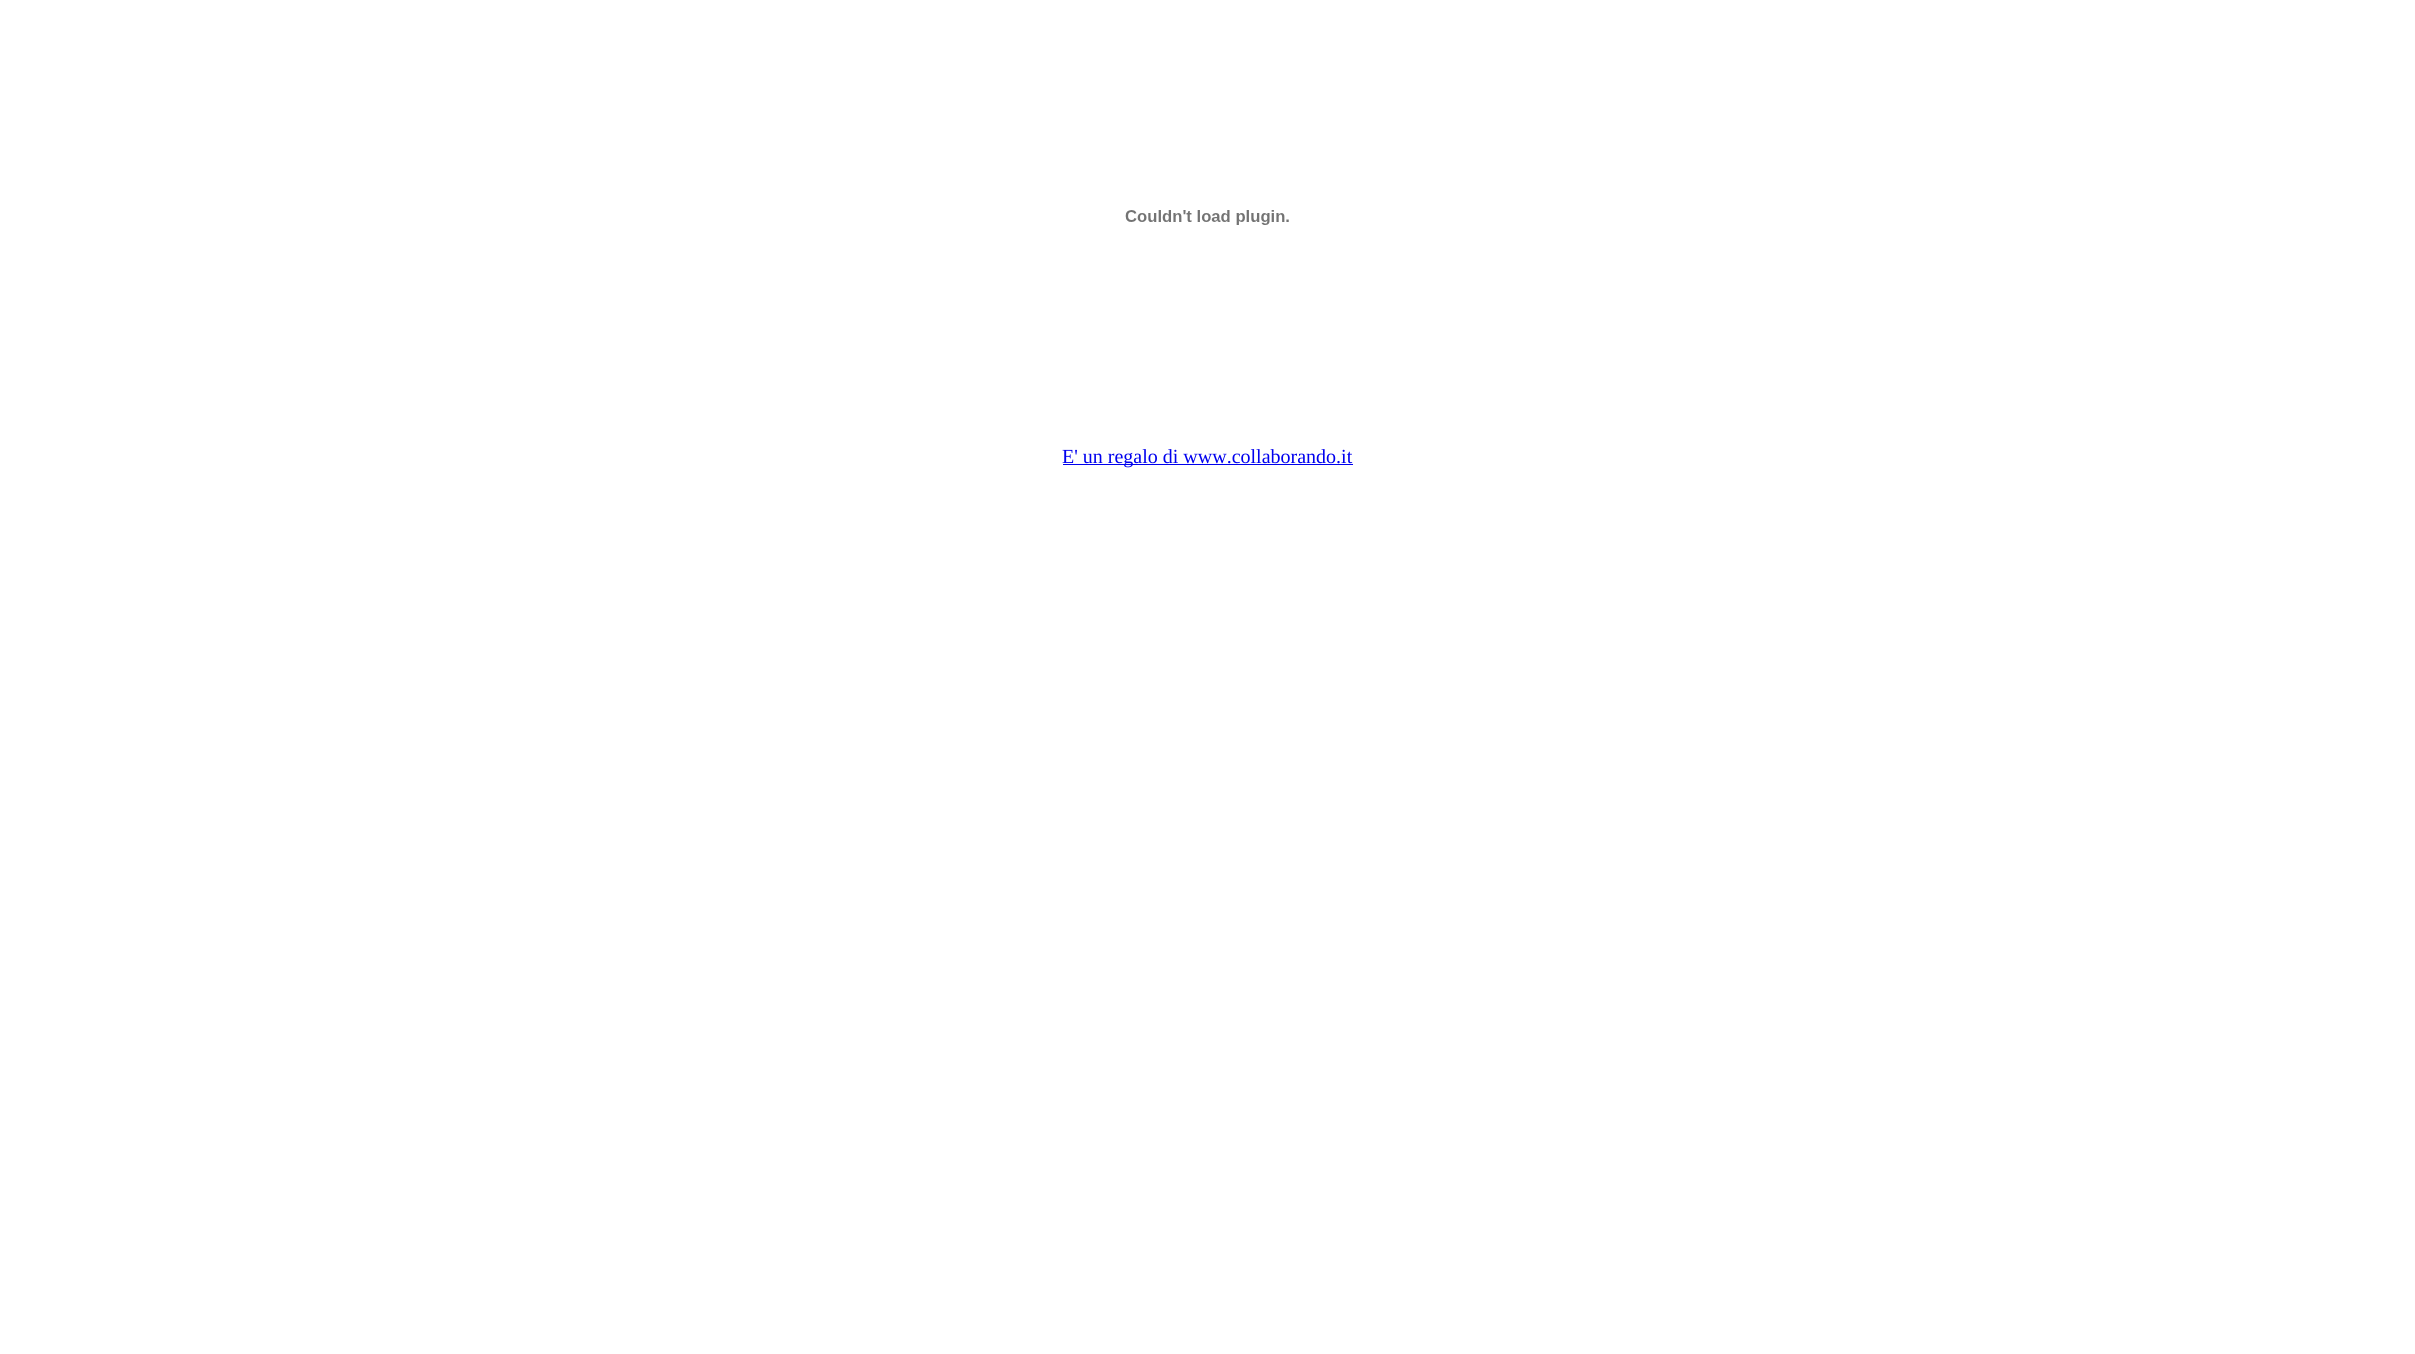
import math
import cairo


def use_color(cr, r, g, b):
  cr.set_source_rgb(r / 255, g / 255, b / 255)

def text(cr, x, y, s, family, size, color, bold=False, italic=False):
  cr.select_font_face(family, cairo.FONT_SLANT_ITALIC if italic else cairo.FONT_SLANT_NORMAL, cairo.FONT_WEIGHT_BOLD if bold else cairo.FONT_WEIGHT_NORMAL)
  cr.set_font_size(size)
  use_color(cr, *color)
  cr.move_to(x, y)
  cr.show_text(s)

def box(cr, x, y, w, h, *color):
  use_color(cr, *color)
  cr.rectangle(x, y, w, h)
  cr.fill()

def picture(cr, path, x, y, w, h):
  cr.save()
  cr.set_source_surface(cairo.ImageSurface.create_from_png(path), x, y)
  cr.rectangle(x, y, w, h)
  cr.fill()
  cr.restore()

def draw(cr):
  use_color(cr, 255, 255, 255)
  cr.paint()
  picture(cr, "img_01.png", 1125, 210, 164, 15)
  box(cr, 1063, 464, 290, 1, 0, 0, 238)
  text(cr, 1062, 463, "E' un regalo di www.collaborando.it", "Liberation Serif", 20, (0, 0, 238))


surface = cairo.ImageSurface(cairo.FORMAT_RGB24, 2415, 1354)
cr = cairo.Context(surface)
options = cairo.FontOptions()
options.set_hint_metrics(cairo.HINT_METRICS_OFF)
options.set_hint_style(cairo.HINT_STYLE_NONE)
cr.set_font_options(options)
cr.set_miter_limit(4)
draw(cr)
surface.write_to_png("out.png")
